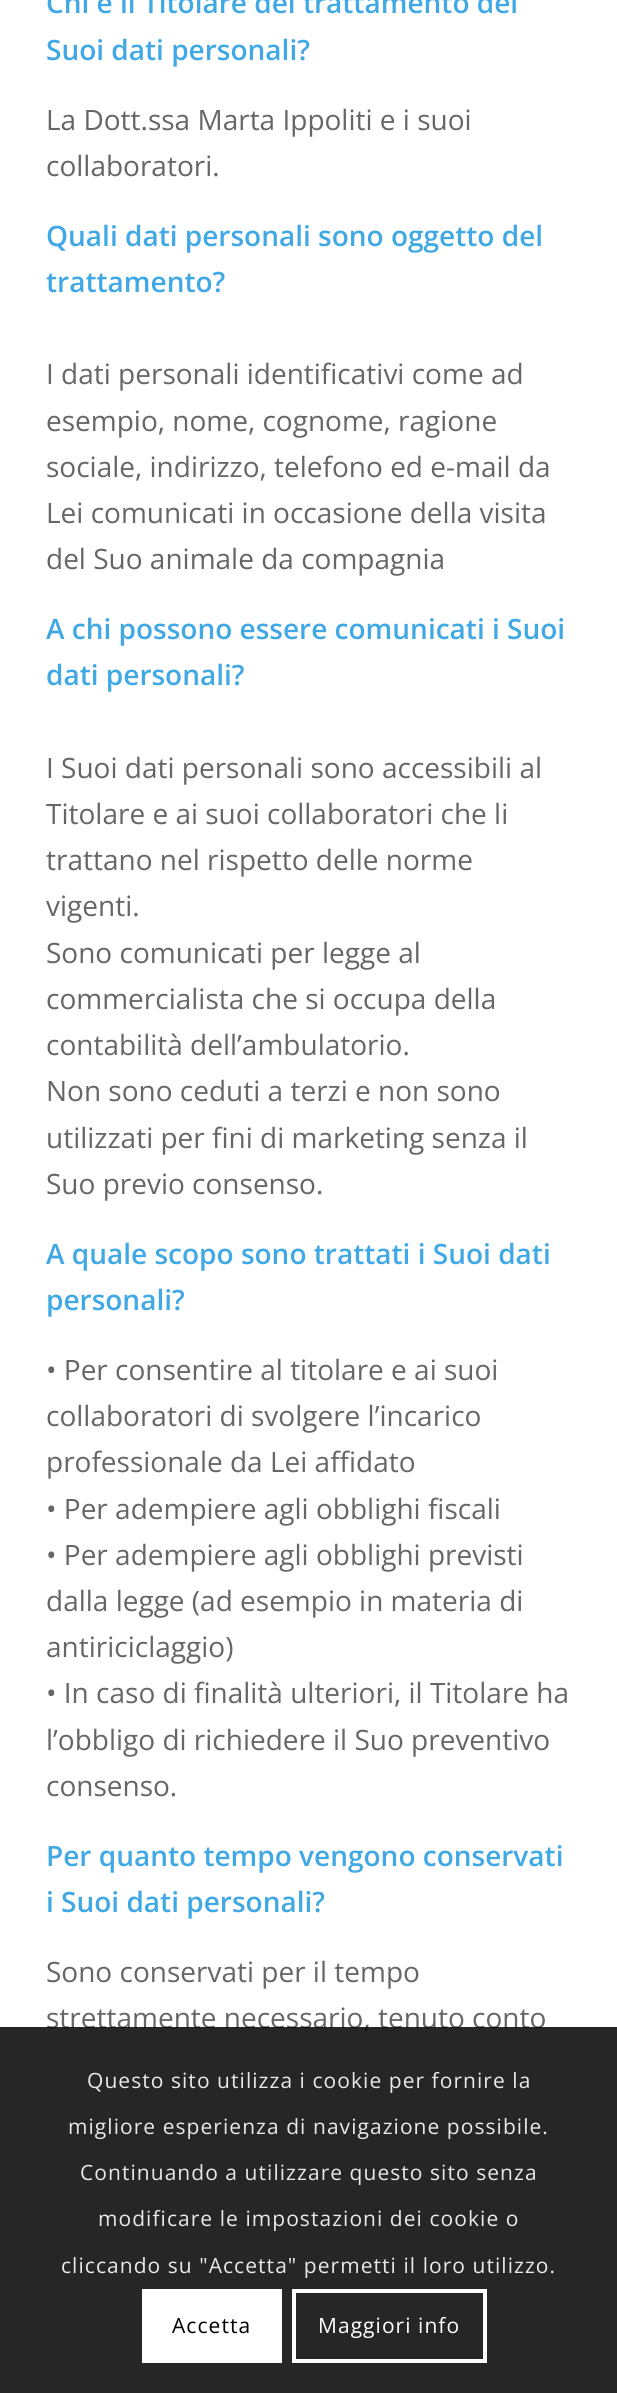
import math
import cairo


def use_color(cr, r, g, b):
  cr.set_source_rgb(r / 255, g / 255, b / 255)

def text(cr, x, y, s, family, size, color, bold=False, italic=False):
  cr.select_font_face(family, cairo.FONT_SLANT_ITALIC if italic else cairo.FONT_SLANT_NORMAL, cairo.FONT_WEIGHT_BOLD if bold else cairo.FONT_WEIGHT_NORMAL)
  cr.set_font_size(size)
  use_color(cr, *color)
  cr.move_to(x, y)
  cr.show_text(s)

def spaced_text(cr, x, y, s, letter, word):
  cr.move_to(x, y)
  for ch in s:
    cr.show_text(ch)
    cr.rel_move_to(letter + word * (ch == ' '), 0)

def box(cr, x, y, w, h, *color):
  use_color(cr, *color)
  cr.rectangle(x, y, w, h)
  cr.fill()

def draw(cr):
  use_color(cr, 255, 255, 255)
  cr.paint()
  text(cr, 46, 13, "Chi è il Titolare del trattamento dei", "Open Sans SemiBold", 28, (64, 168, 228))
  text(cr, 46, 60, "Suoi dati personali?", "Open Sans SemiBold", 28, (64, 168, 228))
  text(cr, 46, 130, "La Dott.ssa Marta Ippoliti e i suoi", "Open Sans", 28, (102, 102, 102))
  text(cr, 46, 176, "collaboratori.", "Open Sans", 28, (102, 102, 102))
  text(cr, 46, 246, "Quali dati personali sono oggetto del", "Open Sans SemiBold", 28, (64, 168, 228))
  text(cr, 46, 292, "trattamento?", "Open Sans SemiBold", 28, (64, 168, 228))
  text(cr, 46, 384, "I dati personali identificativi come ad", "Open Sans", 28, (102, 102, 102))
  text(cr, 46, 431, "esempio, nome, cognome, ragione", "Open Sans", 28, (102, 102, 102))
  text(cr, 46, 477, "sociale, indirizzo, telefono ed e-mail da", "Open Sans", 28, (102, 102, 102))
  text(cr, 46, 523, "Lei comunicati in occasione della visita", "Open Sans", 28, (102, 102, 102))
  text(cr, 46, 569, "del Suo animale da compagnia", "Open Sans", 28, (102, 102, 102))
  text(cr, 46, 639, "A chi possono essere comunicati i Suoi", "Open Sans SemiBold", 28, (64, 168, 228))
  text(cr, 46, 685, "dati personali?", "Open Sans SemiBold", 28, (64, 168, 228))
  text(cr, 46, 778, "I Suoi dati personali sono accessibili al", "Open Sans", 28, (102, 102, 102))
  text(cr, 46, 824, "Titolare e ai suoi collaboratori che li", "Open Sans", 28, (102, 102, 102))
  text(cr, 46, 870, "trattano nel rispetto delle norme", "Open Sans", 28, (102, 102, 102))
  text(cr, 46, 916, "vigenti.", "Open Sans", 28, (102, 102, 102))
  text(cr, 46, 963, "Sono comunicati per legge al", "Open Sans", 28, (102, 102, 102))
  text(cr, 46, 1009, "commercialista che si occupa della", "Open Sans", 28, (102, 102, 102))
  text(cr, 46, 1055, "contabilità dell’ambulatorio.", "Open Sans", 28, (102, 102, 102))
  text(cr, 46, 1101, "Non sono ceduti a terzi e non sono", "Open Sans", 28, (102, 102, 102))
  text(cr, 46, 1148, "utilizzati per fini di marketing senza il", "Open Sans", 28, (102, 102, 102))
  text(cr, 46, 1194, "Suo previo consenso.", "Open Sans", 28, (102, 102, 102))
  text(cr, 46, 1264, "A quale scopo sono trattati i Suoi dati", "Open Sans SemiBold", 28, (64, 168, 228))
  text(cr, 46, 1310, "personali?", "Open Sans SemiBold", 28, (64, 168, 228))
  text(cr, 46, 1380, "• Per consentire al titolare e ai suoi", "Open Sans", 28, (102, 102, 102))
  text(cr, 46, 1426, "collaboratori di svolgere l’incarico", "Open Sans", 28, (102, 102, 102))
  text(cr, 46, 1472, "professionale da Lei affidato", "Open Sans", 28, (102, 102, 102))
  text(cr, 46, 1519, "• Per adempiere agli obblighi fiscali", "Open Sans", 28, (102, 102, 102))
  text(cr, 46, 1565, "• Per adempiere agli obblighi previsti", "Open Sans", 28, (102, 102, 102))
  text(cr, 46, 1611, "dalla legge (ad esempio in materia di", "Open Sans", 28, (102, 102, 102))
  text(cr, 46, 1657, "antiriciclaggio)", "Open Sans", 28, (102, 102, 102))
  text(cr, 46, 1703, "• In caso di finalità ulteriori, il Titolare ha", "Open Sans", 28, (102, 102, 102))
  text(cr, 46, 1750, "l’obbligo di richiedere il Suo preventivo", "Open Sans", 28, (102, 102, 102))
  text(cr, 46, 1796, "consenso.", "Open Sans", 28, (102, 102, 102))
  text(cr, 46, 1866, "Per quanto tempo vengono conservati", "Open Sans SemiBold", 28, (64, 168, 228))
  text(cr, 46, 1912, "i Suoi dati personali?", "Open Sans SemiBold", 28, (64, 168, 228))
  text(cr, 46, 1982, "Sono conservati per il tempo", "Open Sans", 28, (102, 102, 102))
  text(cr, 46, 2028, "strettamente necessario, tenuto conto", "Open Sans", 28, (102, 102, 102))
  cr.set_source_rgba(0, 0, 0, 0.85)
  cr.rectangle(0, 2027, 617, 366)
  cr.fill()
  cr.set_font_size(21)
  use_color(cr, 233, 233, 233)
  spaced_text(cr, 87, 2088, "Questo sito utilizza i cookie per fornire la", 1.05, 0)
  spaced_text(cr, 68, 2134, "migliore esperienza di navigazione possibile.", 1.05, 0)
  spaced_text(cr, 80, 2180, "Continuando a utilizzare questo sito senza", 1.05, 0)
  spaced_text(cr, 98, 2226, "modificare le impostazioni dei cookie o", 1.05, 0)
  spaced_text(cr, 61, 2273, "cliccando su \"Accetta\" permetti il loro utilizzo.", 1.05, 0)
  box(cr, 142, 2289, 140, 74, 255, 255, 255)
  use_color(cr, 0, 0, 0)
  spaced_text(cr, 172, 2333, "Accetta", 1.05, 0)
  cr.rectangle(294, 2291, 191, 70)
  use_color(cr, 255, 255, 255)
  cr.set_line_width(4)
  cr.stroke()
  spaced_text(cr, 318, 2333, "Maggiori info", 1.05, 0)


surface = cairo.ImageSurface(cairo.FORMAT_RGB24, 617, 2393)
cr = cairo.Context(surface)
options = cairo.FontOptions()
options.set_hint_metrics(cairo.HINT_METRICS_OFF)
options.set_hint_style(cairo.HINT_STYLE_NONE)
cr.set_font_options(options)
cr.set_miter_limit(4)
draw(cr)
surface.write_to_png("out.png")
